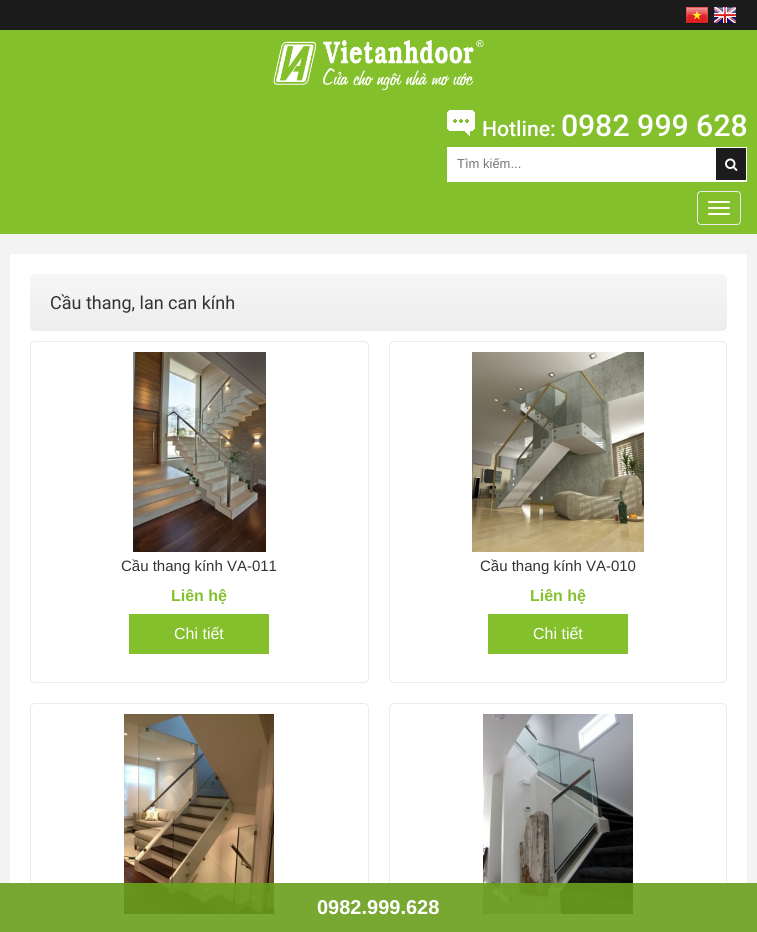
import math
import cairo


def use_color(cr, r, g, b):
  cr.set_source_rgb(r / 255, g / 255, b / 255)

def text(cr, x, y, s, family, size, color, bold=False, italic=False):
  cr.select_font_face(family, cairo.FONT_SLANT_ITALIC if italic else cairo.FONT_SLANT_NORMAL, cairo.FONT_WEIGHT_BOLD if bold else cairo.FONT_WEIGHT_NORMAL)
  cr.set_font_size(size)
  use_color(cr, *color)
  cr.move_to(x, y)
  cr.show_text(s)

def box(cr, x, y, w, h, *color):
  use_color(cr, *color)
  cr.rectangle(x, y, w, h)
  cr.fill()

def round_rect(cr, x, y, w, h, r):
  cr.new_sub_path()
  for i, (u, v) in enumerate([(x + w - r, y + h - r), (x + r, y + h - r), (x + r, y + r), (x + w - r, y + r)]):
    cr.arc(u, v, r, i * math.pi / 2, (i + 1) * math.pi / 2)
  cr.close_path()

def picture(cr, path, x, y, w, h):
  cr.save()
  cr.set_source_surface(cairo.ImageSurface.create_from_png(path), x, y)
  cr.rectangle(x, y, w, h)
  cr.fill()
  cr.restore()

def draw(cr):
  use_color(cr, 243, 243, 243)
  cr.paint()
  box(cr, 0, 0, 757, 30, 28, 28, 28)
  picture(cr, "img_01.png", 686, 7, 22, 17)
  picture(cr, "img_02.png", 714, 7, 22, 17)
  box(cr, 0, 30, 757, 204, 132, 192, 43)
  picture(cr, "img_03.png", 273, 40, 211, 50)
  picture(cr, "img_04.png", 447, 110, 300, 27)
  box(cr, 447, 147, 300, 35, 255, 255, 255)
  box(cr, 716, 148, 30, 32, 28, 28, 28)
  picture(cr, "img_05.png", 725, 158, 13, 13)
  round_rect(cr, 697.5, 191.5, 43, 33, 3.5)
  use_color(cr, 235, 235, 235)
  cr.set_line_width(1)
  cr.stroke()
  use_color(cr, 255, 255, 255)
  round_rect(cr, 708, 201, 22, 2, 1)
  cr.fill()
  round_rect(cr, 708, 207, 22, 2, 1)
  cr.fill()
  round_rect(cr, 708, 213, 22, 2, 1)
  cr.fill()
  box(cr, 10, 254, 737, 678, 255, 255, 255)
  picture(cr, "img_06.png", 30, 274, 697, 57)
  round_rect(cr, 30.5, 341.5, 338, 341, 4.5)
  use_color(cr, 235, 235, 235)
  cr.stroke()
  picture(cr, "img_07.png", 133, 352, 133, 200)
  box(cr, 129, 614, 140, 40, 132, 192, 43)
  round_rect(cr, 389.5, 341.5, 337, 341, 4.5)
  use_color(cr, 235, 235, 235)
  cr.stroke()
  picture(cr, "img_08.png", 472, 352, 172, 200)
  box(cr, 488, 614, 140, 40, 132, 192, 43)
  round_rect(cr, 30.5, 703.5, 338, 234, 4.5)
  use_color(cr, 235, 235, 235)
  cr.stroke()
  picture(cr, "img_09.png", 124, 714, 150, 200)
  round_rect(cr, 389.5, 703.5, 337, 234, 4.5)
  cr.stroke()
  picture(cr, "img_10.png", 483, 714, 150, 200)
  cr.set_source_rgba(0.416, 0.62, 0.11, 0.9)
  cr.rectangle(0, 883, 757, 49)
  cr.fill()
  text(cr, 457, 168, "Tìm kiếm...", "Liberation Sans", 13, (117, 117, 117))
  text(cr, 50, 309, "Cầu thang, lan can kính", "Roboto", 18, (51, 51, 51))
  text(cr, 121, 571, "Cầu thang kính VA-011", "Liberation Sans", 15, (51, 51, 51))
  text(cr, 171, 601, "Liên hệ", "Liberation Sans", 16, (132, 192, 43), bold=True)
  text(cr, 174, 639, "Chi tiết", "Liberation Sans", 16, (255, 255, 255))
  text(cr, 480, 571, "Cầu thang kính VA-010", "Liberation Sans", 15, (51, 51, 51))
  text(cr, 530, 601, "Liên hệ", "Liberation Sans", 16, (132, 192, 43), bold=True)
  text(cr, 533, 639, "Chi tiết", "Liberation Sans", 16, (255, 255, 255))
  text(cr, 317, 914, "0982.999.628", "Liberation Sans", 20, (255, 255, 255), bold=True)


surface = cairo.ImageSurface(cairo.FORMAT_RGB24, 757, 932)
cr = cairo.Context(surface)
options = cairo.FontOptions()
options.set_hint_metrics(cairo.HINT_METRICS_OFF)
options.set_hint_style(cairo.HINT_STYLE_NONE)
cr.set_font_options(options)
cr.set_miter_limit(4)
draw(cr)
surface.write_to_png("out.png")
